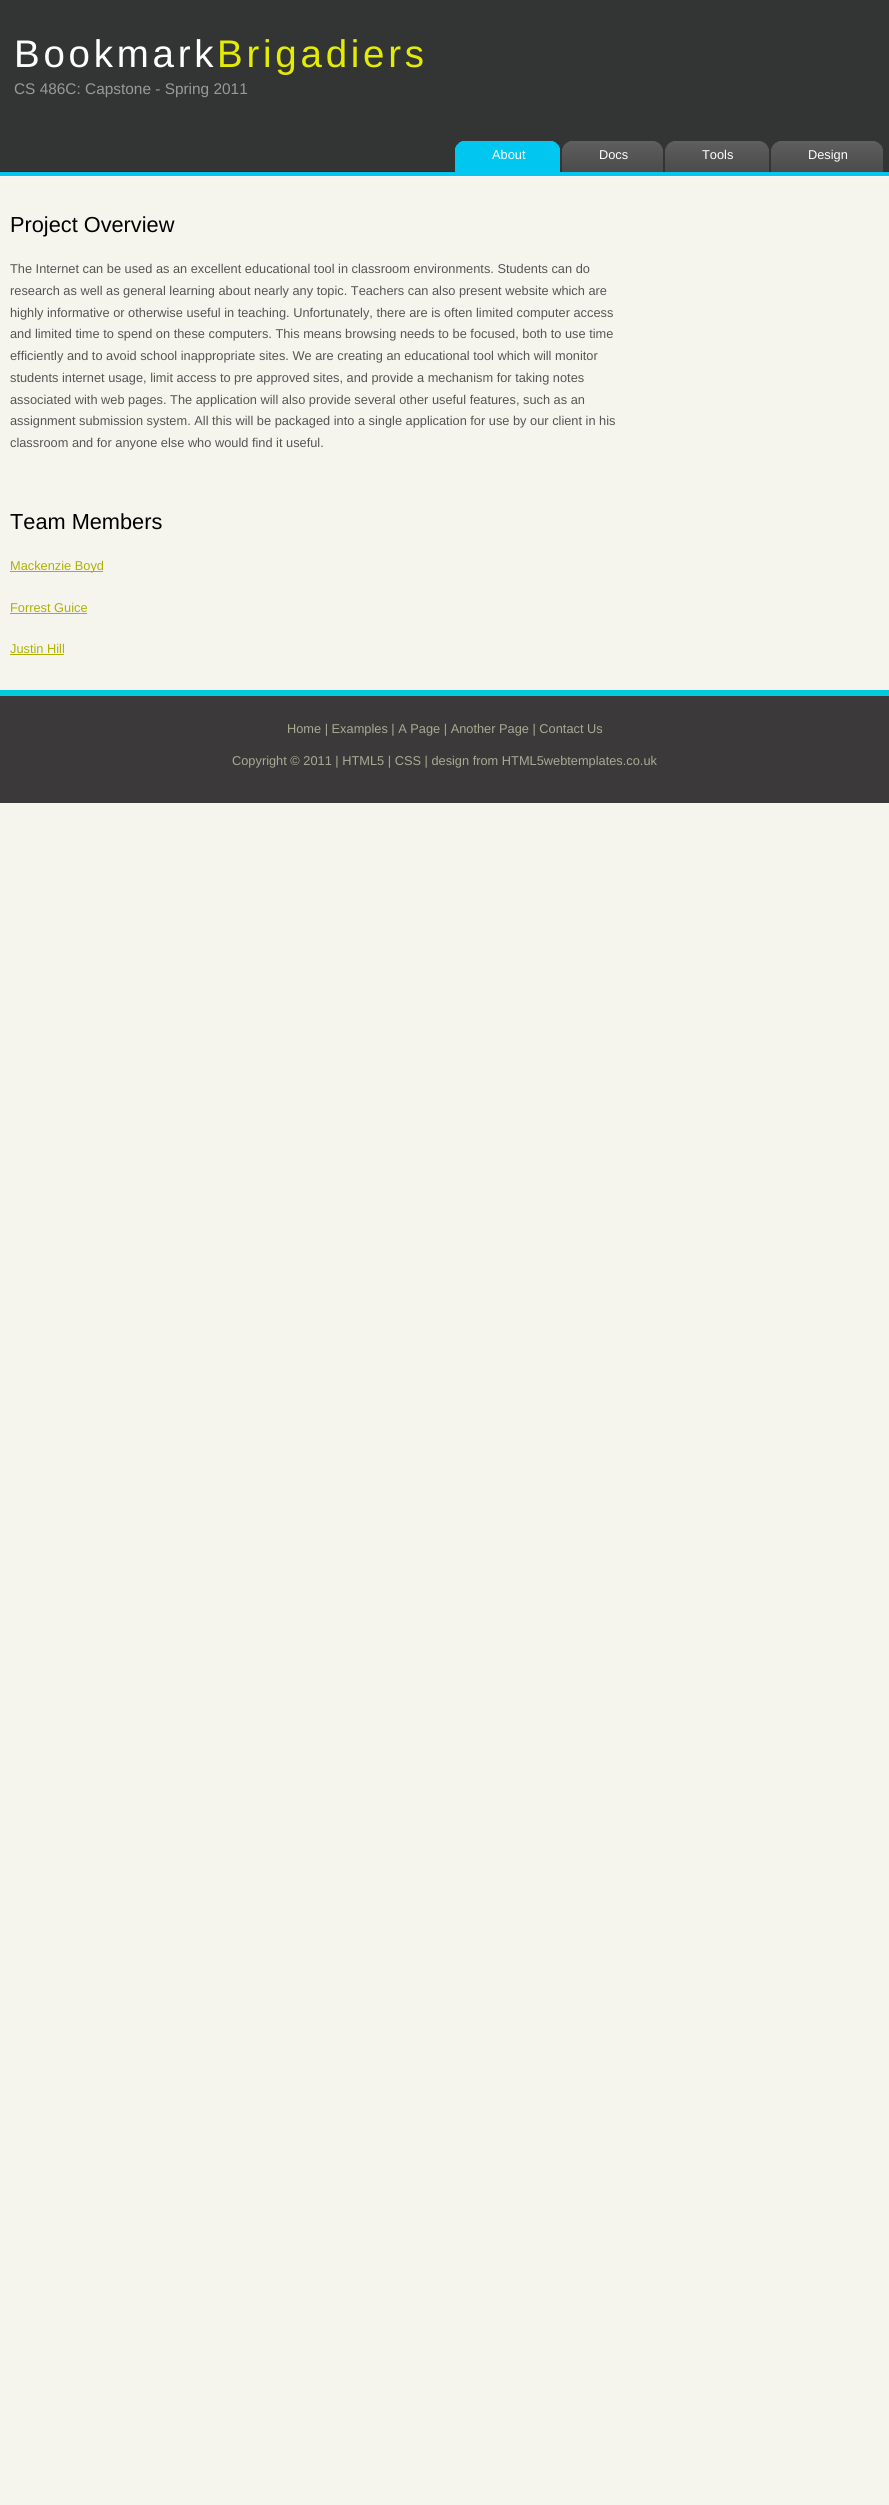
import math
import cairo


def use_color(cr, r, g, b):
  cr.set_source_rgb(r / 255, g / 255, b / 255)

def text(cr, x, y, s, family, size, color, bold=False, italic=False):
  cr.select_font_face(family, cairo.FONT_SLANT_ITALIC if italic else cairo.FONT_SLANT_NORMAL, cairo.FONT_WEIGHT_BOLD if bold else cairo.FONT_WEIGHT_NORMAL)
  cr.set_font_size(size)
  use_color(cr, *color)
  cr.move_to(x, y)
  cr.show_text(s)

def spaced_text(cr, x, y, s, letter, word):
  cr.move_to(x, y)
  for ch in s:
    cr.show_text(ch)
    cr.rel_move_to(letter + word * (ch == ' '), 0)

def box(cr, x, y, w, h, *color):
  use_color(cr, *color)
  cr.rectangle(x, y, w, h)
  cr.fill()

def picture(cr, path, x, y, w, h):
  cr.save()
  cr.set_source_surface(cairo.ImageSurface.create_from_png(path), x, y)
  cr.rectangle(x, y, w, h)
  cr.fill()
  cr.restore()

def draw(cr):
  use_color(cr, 245, 245, 238)
  cr.paint()
  box(cr, 0, 0, 889, 171, 50, 53, 52)
  picture(cr, "img_01.png", 0, 171, 889, 6)
  box(cr, 455, 141, 105, 31, 0, 198, 240)
  picture(cr, "img_02.png", 455, 141, 7, 7)
  picture(cr, "img_03.png", 553, 141, 7, 7)
  picture(cr, "img_04.png", 562, 141, 9, 31)
  picture(cr, "img_05.png", 571, 141, 92, 31)
  picture(cr, "img_06.png", 665, 141, 9, 31)
  picture(cr, "img_07.png", 674, 141, 95, 31)
  picture(cr, "img_06.png", 771, 141, 9, 31)
  picture(cr, "img_08.png", 780, 141, 103, 31)
  box(cr, 10, 571, 93, 1, 174, 176, 2)
  box(cr, 10, 613, 77, 1, 174, 176, 2)
  box(cr, 10, 654, 54, 1, 174, 176, 2)
  box(cr, 0, 696, 889, 107, 59, 57, 57)
  box(cr, 0, 690, 889, 6, 2, 202, 220)
  cr.select_font_face("Liberation Sans")
  cr.set_font_size(38.5)
  use_color(cr, 255, 255, 255)
  spaced_text(cr, 14, 67, "Bookmark", 3.75, 0)
  use_color(cr, 228, 236, 4)
  spaced_text(cr, 217, 67, "Brigadiers", 3.75, 0)
  text(cr, 14, 94, "CS 486C: Capstone - Spring 2011", "Liberation Sans", 15.4, (153, 153, 153))
  text(cr, 492, 159, "About", "Liberation Sans", 12.8, (255, 255, 255))
  text(cr, 599, 159, "Docs", "Liberation Sans", 12.8, (255, 255, 255))
  text(cr, 702, 159, "Tools", "Liberation Sans", 12.8, (255, 255, 255))
  text(cr, 808, 159, "Design", "Liberation Sans", 12.8, (255, 255, 255))
  text(cr, 10, 232, "Project Overview", "Liberation Sans", 21.75, (0, 0, 0))
  text(cr, 10, 273, "The Internet can be used as an excellent educational tool in classroom environments. Students can do", "Liberation Sans", 12.8, (85, 85, 85))
  text(cr, 10, 295, "research as well as general learning about nearly any topic. Teachers can also present website which are", "Liberation Sans", 12.8, (85, 85, 85))
  text(cr, 10, 317, "highly informative or otherwise useful in teaching. Unfortunately, there are is often limited computer access", "Liberation Sans", 12.8, (85, 85, 85))
  text(cr, 10, 338, "and limited time to spend on these computers. This means browsing needs to be focused, both to use time", "Liberation Sans", 12.8, (85, 85, 85))
  text(cr, 10, 360, "efficiently and to avoid school inappropriate sites. We are creating an educational tool which will monitor", "Liberation Sans", 12.8, (85, 85, 85))
  text(cr, 10, 382, "students internet usage, limit access to pre approved sites, and provide a mechanism for taking notes", "Liberation Sans", 12.8, (85, 85, 85))
  text(cr, 10, 404, "associated with web pages. The application will also provide several other useful features, such as an", "Liberation Sans", 12.8, (85, 85, 85))
  text(cr, 10, 425, "assignment submission system. All this will be packaged into a single application for use by our client in his", "Liberation Sans", 12.8, (85, 85, 85))
  text(cr, 10, 447, "classroom and for anyone else who would find it useful.", "Liberation Sans", 12.8, (85, 85, 85))
  text(cr, 10, 529, "Team Members", "Liberation Sans", 21.75, (0, 0, 0))
  text(cr, 10, 570, "Mackenzie Boyd", "Liberation Sans", 12.8, (174, 176, 2))
  text(cr, 10, 612, "Forrest Guice", "Liberation Sans", 12.8, (174, 176, 2))
  text(cr, 10, 653, "Justin Hill", "Liberation Sans", 12.8, (174, 176, 2))
  text(cr, 287, 733, "Home | Examples | A Page | Another Page | Contact Us", "Liberation Sans", 12.8, (168, 170, 148))
  text(cr, 232, 765, "Copyright © 2011 | HTML5 | CSS | design from HTML5webtemplates.co.uk", "Liberation Sans", 12.8, (168, 170, 148))


surface = cairo.ImageSurface(cairo.FORMAT_RGB24, 889, 2505)
cr = cairo.Context(surface)
options = cairo.FontOptions()
options.set_hint_metrics(cairo.HINT_METRICS_OFF)
options.set_hint_style(cairo.HINT_STYLE_NONE)
cr.set_font_options(options)
cr.set_miter_limit(4)
draw(cr)
surface.write_to_png("out.png")
